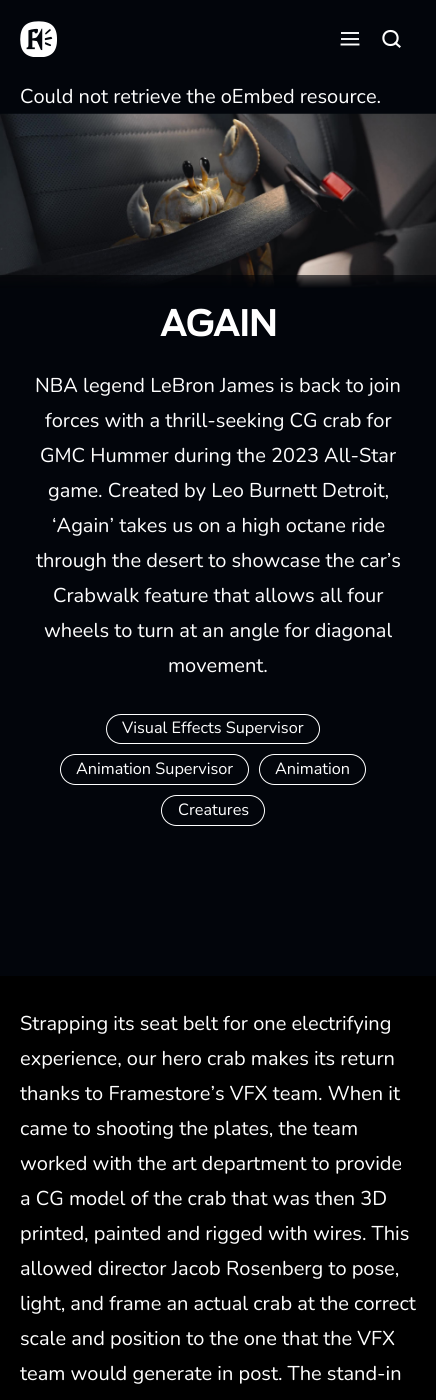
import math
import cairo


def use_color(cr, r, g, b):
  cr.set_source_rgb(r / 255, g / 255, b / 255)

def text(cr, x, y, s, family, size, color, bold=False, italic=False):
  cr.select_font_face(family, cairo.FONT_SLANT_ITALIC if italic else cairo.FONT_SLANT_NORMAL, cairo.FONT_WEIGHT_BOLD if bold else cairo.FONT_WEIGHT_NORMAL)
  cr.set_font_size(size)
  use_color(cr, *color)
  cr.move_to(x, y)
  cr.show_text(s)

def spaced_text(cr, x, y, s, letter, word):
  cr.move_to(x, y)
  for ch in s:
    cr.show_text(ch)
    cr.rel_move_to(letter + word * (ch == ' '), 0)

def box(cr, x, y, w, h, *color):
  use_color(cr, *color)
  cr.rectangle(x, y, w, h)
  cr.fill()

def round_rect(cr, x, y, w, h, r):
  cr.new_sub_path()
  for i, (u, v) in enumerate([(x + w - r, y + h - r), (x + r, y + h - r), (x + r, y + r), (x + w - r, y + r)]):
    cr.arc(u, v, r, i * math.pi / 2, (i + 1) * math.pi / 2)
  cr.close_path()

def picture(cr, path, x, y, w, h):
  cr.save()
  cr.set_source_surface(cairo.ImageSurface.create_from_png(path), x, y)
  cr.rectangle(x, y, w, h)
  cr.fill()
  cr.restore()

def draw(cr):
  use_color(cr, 2, 5, 11)
  cr.paint()
  picture(cr, "img_01.png", 20, 21, 37, 36)
  box(cr, 341, 32, 18, 2, 242, 243, 243)
  box(cr, 341, 38, 18, 2, 242, 243, 243)
  cr.new_path()
  cr.move_to(341.5, 44.5)
  cr.line_to(358.5, 44.5)
  use_color(cr, 255, 255, 255)
  cr.set_line_width(1.9)
  cr.set_line_cap(cairo.LINE_CAP_SQUARE)
  cr.set_line_join(cairo.LINE_JOIN_ROUND)
  cr.stroke()
  cr.new_path()
  cr.move_to(390.5, 45)
  cr.curve_to(400, 45, 400, 31, 390.5, 31)
  cr.curve_to(381, 31, 381, 45, 390.5, 45)
  cr.close_path()
  cr.set_line_width(2.1)
  cr.set_line_cap(cairo.LINE_CAP_ROUND)
  cr.stroke()
  cr.new_path()
  cr.move_to(399.5, 46.5)
  cr.line_to(395.5, 43)
  cr.set_line_cap(cairo.LINE_CAP_SQUARE)
  cr.stroke()
  picture(cr, "img_02.png", 0, 113, 436, 175)
  cr.set_source_rgba(0.008, 0.02, 0.043, 0.5)
  cr.rectangle(0, 275, 436, 13)
  cr.fill()
  gradient = cairo.LinearGradient(218, 295, 218, 275)
  gradient.add_color_stop_rgba(0, 0.008, 0.02, 0.043, 1)
  gradient.add_color_stop_rgba(0.34, 0.008, 0.02, 0.043, 1)
  gradient.add_color_stop_rgba(1, 0.008, 0.02, 0.043, 0)
  cr.set_source(gradient)
  cr.rectangle(0, 275, 436, 13)
  cr.fill()
  cr.set_source_rgba(0, 0, 0, 0.2)
  cr.rectangle(0, 275, 436, 13)
  cr.fill()
  round_rect(cr, 106.5, 714.5, 213, 29, 14.5)
  use_color(cr, 255, 255, 255)
  cr.set_line_width(1)
  cr.set_line_cap(cairo.LINE_CAP_BUTT)
  cr.set_line_join(cairo.LINE_JOIN_MITER)
  cr.stroke()
  round_rect(cr, 60.5, 754.5, 188, 30, 15)
  cr.stroke()
  round_rect(cr, 259.5, 754.5, 106, 30, 15)
  cr.stroke()
  round_rect(cr, 161.5, 795.5, 103, 30, 15)
  cr.stroke()
  box(cr, 0, 976, 436, 424, 0, 0, 0)
  text(cr, 20, 103, "Could not retrieve the oEmbed resource.", "Nunito", 20, (255, 255, 255))
  cr.select_font_face("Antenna", cairo.FONT_SLANT_NORMAL, cairo.FONT_WEIGHT_BOLD)
  cr.set_font_size(35)
  spaced_text(cr, 160, 336, "AGAIN", -0.5, 0)
  text(cr, 35, 392, "NBA legend LeBron James is back to join", "Nunito", 20, (255, 255, 255))
  text(cr, 45, 427, "forces with a thrill-seeking CG crab for", "Nunito", 20, (255, 255, 255))
  text(cr, 40, 462, "GMC Hummer during the 2023 All-Star", "Nunito", 20, (255, 255, 255))
  text(cr, 48, 497, "game. Created by Leo Burnett Detroit,", "Nunito", 20, (255, 255, 255))
  text(cr, 52, 532, "‘Again’ takes us on a high octane ride", "Nunito", 20, (255, 255, 255))
  text(cr, 36, 567, "through the desert to showcase the car’s", "Nunito", 20, (255, 255, 255))
  text(cr, 53, 602, "Crabwalk feature that allows all four", "Nunito", 20, (255, 255, 255))
  text(cr, 44, 637, "wheels to turn at an angle for diagonal", "Nunito", 20, (255, 255, 255))
  text(cr, 168, 672, "movement.", "Nunito", 20, (255, 255, 255))
  text(cr, 122, 733, "Visual Effects Supervisor", "Nunito", 16.25, (255, 255, 255))
  text(cr, 76, 774, "Animation Supervisor", "Nunito", 16.25, (255, 255, 255))
  text(cr, 275, 774, "Animation", "Nunito", 16.25, (255, 255, 255))
  text(cr, 178, 815, "Creatures", "Nunito", 16.25, (255, 255, 255))
  text(cr, 20, 1030, "Strapping its seat belt for one electrifying", "Nunito", 20, (255, 255, 255))
  text(cr, 20, 1065, "experience, our hero crab makes its return", "Nunito", 20, (255, 255, 255))
  text(cr, 20, 1100, "thanks to Framestore’s VFX team. When it", "Nunito", 20, (255, 255, 255))
  text(cr, 20, 1135, "came to shooting the plates, the team", "Nunito", 20, (255, 255, 255))
  text(cr, 20, 1170, "worked with the art department to provide", "Nunito", 20, (255, 255, 255))
  text(cr, 20, 1205, "a CG model of the crab that was then 3D", "Nunito", 20, (255, 255, 255))
  text(cr, 20, 1240, "printed, painted and rigged with wires. This", "Nunito", 20, (255, 255, 255))
  text(cr, 20, 1275, "allowed director Jacob Rosenberg to pose,", "Nunito", 20, (255, 255, 255))
  text(cr, 20, 1310, "light, and frame an actual crab at the correct", "Nunito", 20, (255, 255, 255))
  text(cr, 20, 1345, "scale and position to the one that the VFX", "Nunito", 20, (255, 255, 255))
  text(cr, 20, 1380, "team would generate in post. The stand-in", "Nunito", 20, (255, 255, 255))


surface = cairo.ImageSurface(cairo.FORMAT_RGB24, 436, 1400)
cr = cairo.Context(surface)
options = cairo.FontOptions()
options.set_hint_metrics(cairo.HINT_METRICS_OFF)
options.set_hint_style(cairo.HINT_STYLE_NONE)
cr.set_font_options(options)
cr.set_miter_limit(4)
draw(cr)
surface.write_to_png("out.png")
